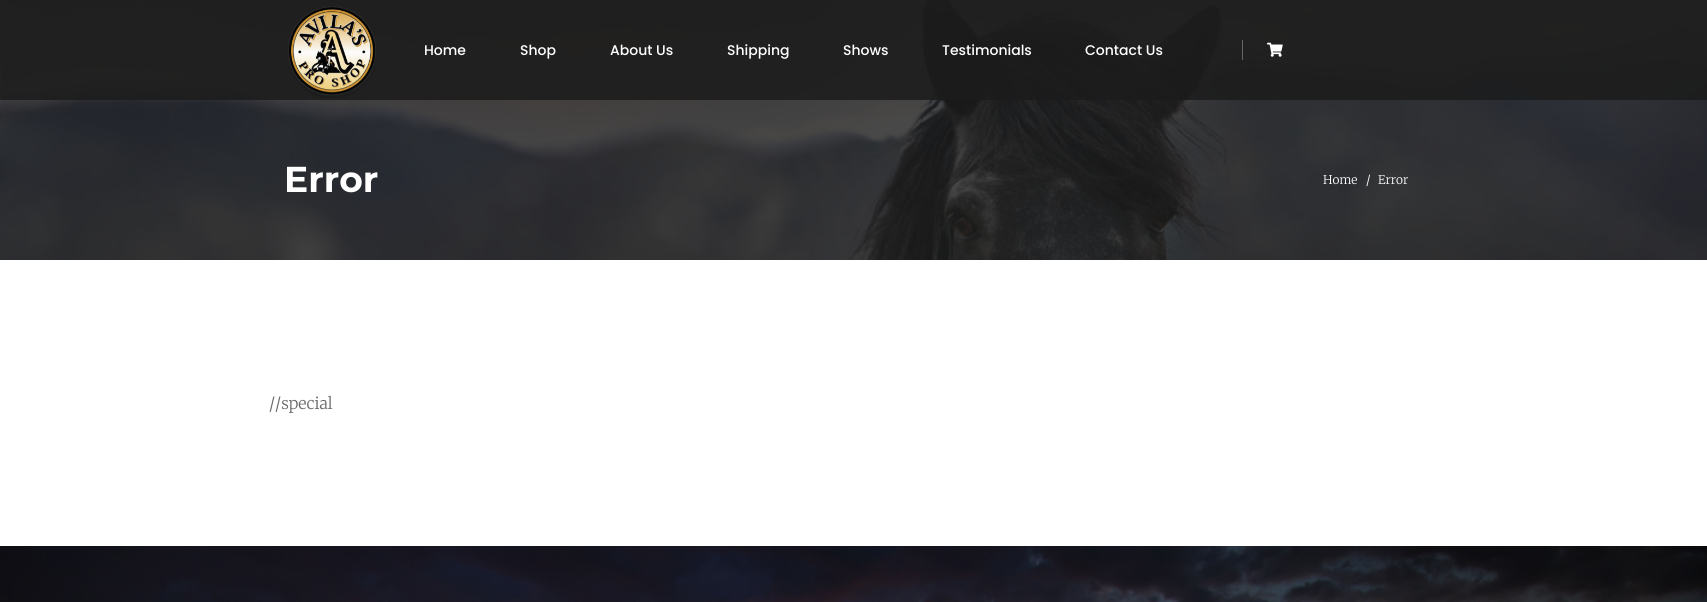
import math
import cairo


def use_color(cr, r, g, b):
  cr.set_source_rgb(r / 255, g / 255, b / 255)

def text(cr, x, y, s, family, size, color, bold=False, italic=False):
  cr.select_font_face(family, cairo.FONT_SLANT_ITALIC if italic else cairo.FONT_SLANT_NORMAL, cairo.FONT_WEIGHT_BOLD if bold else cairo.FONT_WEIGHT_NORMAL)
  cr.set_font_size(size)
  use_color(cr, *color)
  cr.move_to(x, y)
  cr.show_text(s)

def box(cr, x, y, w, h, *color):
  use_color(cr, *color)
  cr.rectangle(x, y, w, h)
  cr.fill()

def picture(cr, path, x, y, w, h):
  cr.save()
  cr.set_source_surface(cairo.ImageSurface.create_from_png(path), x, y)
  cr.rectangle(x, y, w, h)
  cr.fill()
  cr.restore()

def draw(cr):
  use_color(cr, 255, 255, 255)
  cr.paint()
  picture(cr, "img_03.png", 0, 0, 1707, 260)
  cr.set_source_rgba(0.106, 0.106, 0.106, 0.85)
  cr.rectangle(0, 0, 1707, 100)
  cr.fill()
  picture(cr, "img_01.png", 288, 6, 88, 92)
  box(cr, 1242, 40, 1, 20, 101, 101, 101)
  picture(cr, "img_02.png", 1267, 42, 16, 15)
  picture(cr, "img_04.png", 0, 546, 1707, 56)
  text(cr, 424, 55, "Home", "Poppins Medium", 14, (255, 255, 255))
  text(cr, 520, 55, "Shop", "Poppins Medium", 14, (255, 255, 255))
  text(cr, 610, 55, "About Us", "Poppins Medium", 14, (255, 255, 255))
  text(cr, 727, 55, "Shipping", "Poppins Medium", 14, (255, 255, 255))
  text(cr, 843, 55, "Shows", "Poppins Medium", 14, (255, 255, 255))
  text(cr, 942, 55, "Testimonials", "Poppins Medium", 14, (255, 255, 255))
  text(cr, 1085, 55, "Contact Us", "Poppins Medium", 14, (255, 255, 255))
  text(cr, 284, 192, "Error", "Montserrat", 36, (255, 255, 255), bold=True)
  text(cr, 1323, 184, "Home", "Merriweather Light", 12, (255, 255, 255))
  text(cr, 1366, 184, "/", "Merriweather Light", 12, (255, 255, 255))
  text(cr, 1378, 184, "Error", "Merriweather Light", 12, (255, 255, 255))
  text(cr, 269, 409, "//special", "Merriweather Light", 16, (104, 104, 104))


surface = cairo.ImageSurface(cairo.FORMAT_RGB24, 1707, 602)
cr = cairo.Context(surface)
options = cairo.FontOptions()
options.set_hint_metrics(cairo.HINT_METRICS_OFF)
options.set_hint_style(cairo.HINT_STYLE_NONE)
cr.set_font_options(options)
cr.set_miter_limit(4)
draw(cr)
surface.write_to_png("out.png")
